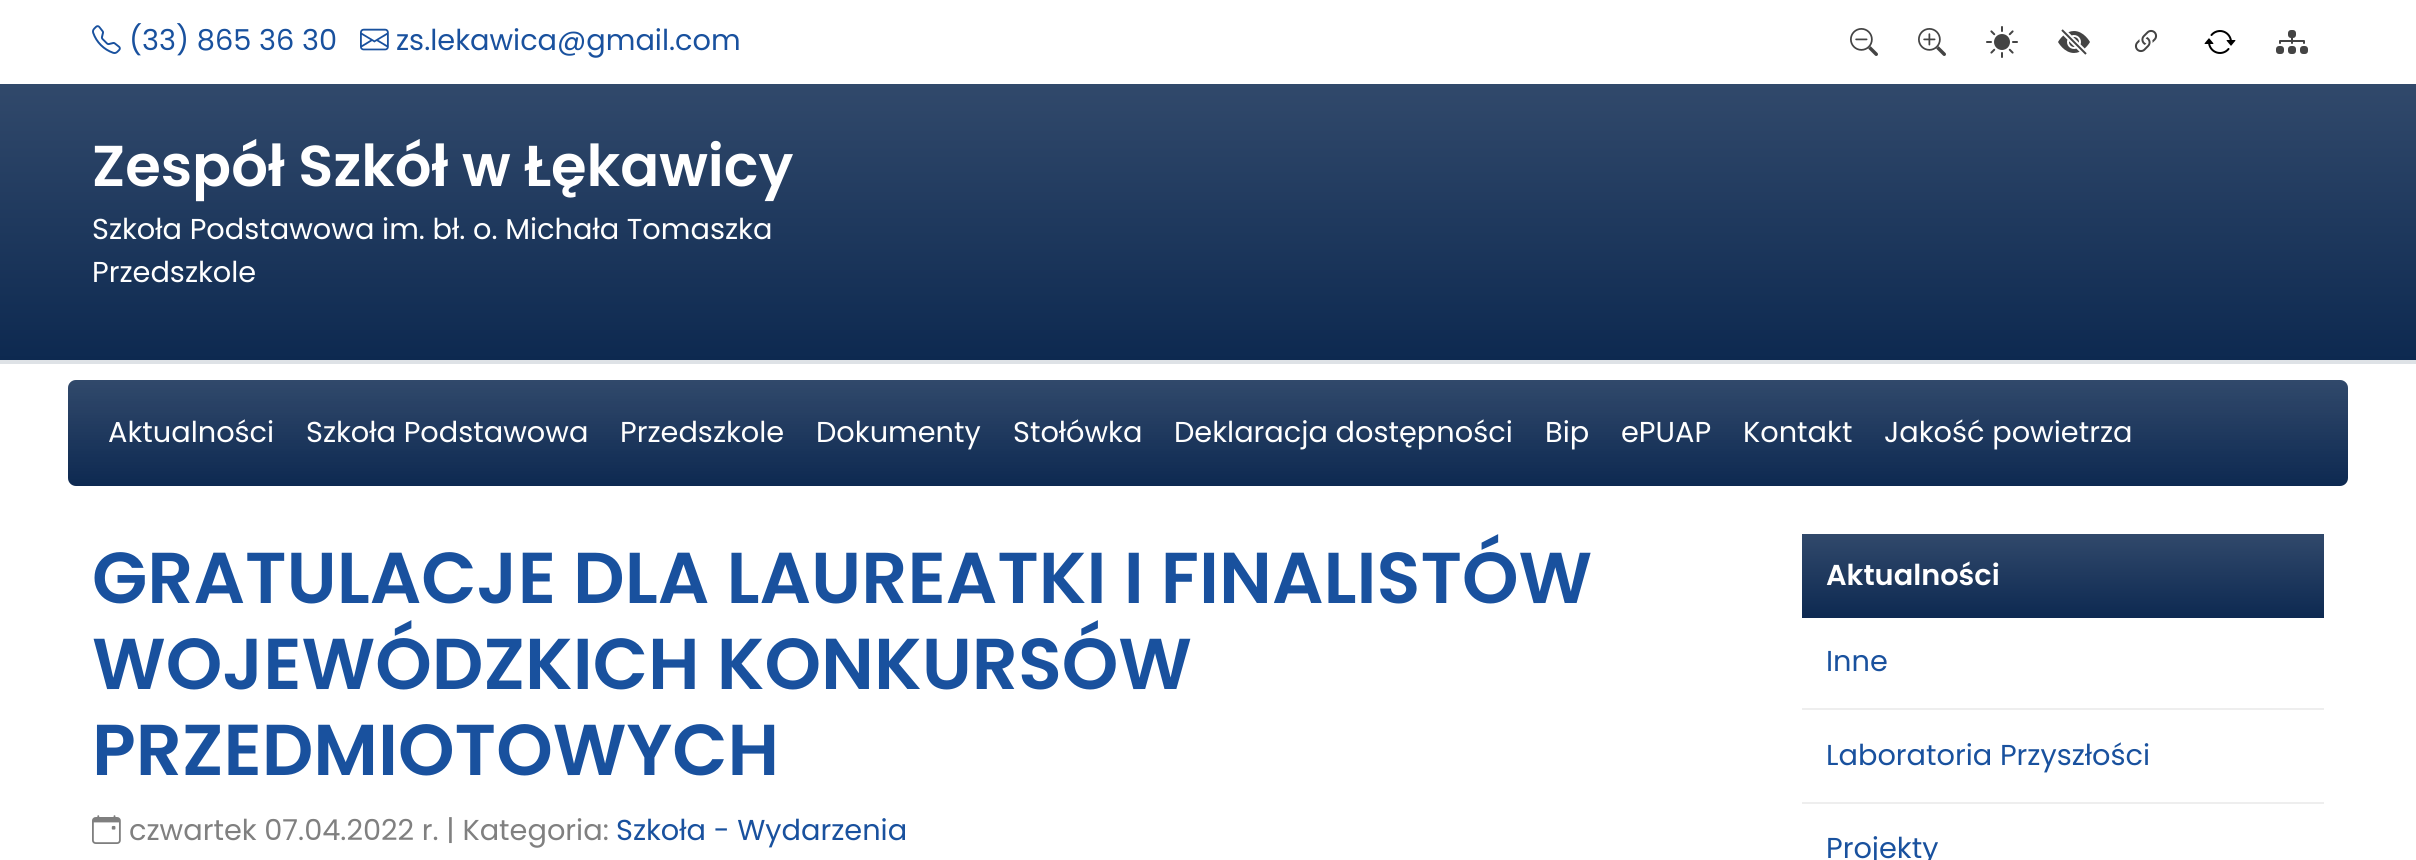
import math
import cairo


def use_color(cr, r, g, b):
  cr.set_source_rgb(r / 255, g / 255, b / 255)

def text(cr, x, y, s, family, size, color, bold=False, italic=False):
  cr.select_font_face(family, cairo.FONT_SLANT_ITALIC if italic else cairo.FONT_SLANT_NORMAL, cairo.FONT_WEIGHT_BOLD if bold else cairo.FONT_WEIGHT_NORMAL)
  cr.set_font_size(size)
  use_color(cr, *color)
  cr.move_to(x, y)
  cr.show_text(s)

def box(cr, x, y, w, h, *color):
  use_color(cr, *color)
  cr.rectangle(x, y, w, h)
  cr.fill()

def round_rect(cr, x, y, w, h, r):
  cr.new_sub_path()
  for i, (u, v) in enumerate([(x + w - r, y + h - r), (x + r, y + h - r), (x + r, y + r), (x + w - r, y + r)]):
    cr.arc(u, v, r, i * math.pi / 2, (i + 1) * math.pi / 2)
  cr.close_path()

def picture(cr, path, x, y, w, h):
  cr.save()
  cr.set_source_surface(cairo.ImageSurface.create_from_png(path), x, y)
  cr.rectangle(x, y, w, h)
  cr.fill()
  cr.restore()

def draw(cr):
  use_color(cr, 255, 255, 255)
  cr.paint()
  picture(cr, "img_01.png", 92, 25, 29, 29)
  picture(cr, "img_02.png", 360, 28, 29, 23)
  picture(cr, "img_03.png", 1850, 28, 28, 28)
  picture(cr, "img_04.png", 1918, 28, 28, 28)
  picture(cr, "img_05.png", 1986, 26, 32, 32)
  picture(cr, "img_06.png", 2058, 29, 32, 26)
  picture(cr, "img_07.png", 2134, 29, 24, 24)
  picture(cr, "img_08.png", 2204, 30, 32, 24)
  picture(cr, "img_09.png", 2276, 30, 32, 24)
  gradient = cairo.LinearGradient(1208, 84, 1208, 360)
  gradient.add_color_stop_rgba(0, 0.192, 0.286, 0.42, 1)
  gradient.add_color_stop_rgba(1, 0.051, 0.161, 0.314, 1)
  cr.set_source(gradient)
  cr.rectangle(0, 84, 2416, 276)
  cr.fill()
  box(cr, 0, 360, 2416, 4, 222, 226, 230)
  use_color(cr, 13, 41, 81)
  round_rect(cr, 68, 380, 2280, 106, 8)
  cr.fill()
  gradient = cairo.LinearGradient(1208, 380, 1208, 486)
  gradient.add_color_stop_rgba(0, 1, 1, 1, 0.15)
  gradient.add_color_stop_rgba(1, 1, 1, 1, 0)
  cr.set_source(gradient)
  round_rect(cr, 68, 380, 2280, 106, 8)
  cr.fill()
  picture(cr, "img_10.png", 92, 815, 29, 29)
  gradient = cairo.LinearGradient(2063, 534, 2063, 618)
  gradient.add_color_stop_rgba(0, 0.192, 0.286, 0.42, 1)
  gradient.add_color_stop_rgba(1, 0.051, 0.161, 0.318, 1)
  cr.set_source(gradient)
  cr.rectangle(1802, 534, 522, 84)
  cr.fill()
  box(cr, 1802, 708, 522, 2, 238, 238, 238)
  box(cr, 1802, 802, 522, 2, 238, 238, 238)
  text(cr, 129, 50, "(33) 865 36 30", "Poppins", 28.8, (25, 81, 158))
  text(cr, 396, 50, "zs.lekawica@gmail.com", "Poppins", 28.8, (25, 81, 158))
  text(cr, 92, 186, "Zespół Szkół w Łękawicy", "Poppins SemiBold", 57.6, (255, 255, 255))
  text(cr, 92, 239, "Szkoła Podstawowa im. bł. o. Michała Tomaszka", "Poppins", 28.8, (255, 255, 255))
  text(cr, 92, 282, "Przedszkole", "Poppins", 28.8, (255, 255, 255))
  text(cr, 108, 442, "Aktualności", "Poppins", 28.8, (255, 255, 255))
  text(cr, 306, 442, "Szkoła Podstawowa", "Poppins", 28.8, (255, 255, 255))
  text(cr, 620, 442, "Przedszkole", "Poppins", 28.8, (255, 255, 255))
  text(cr, 816, 442, "Dokumenty", "Poppins", 28.8, (255, 255, 255))
  text(cr, 1013, 442, "Stołówka", "Poppins", 28.8, (255, 255, 255))
  text(cr, 1174, 442, "Deklaracja dostępności", "Poppins", 28.8, (255, 255, 255))
  text(cr, 1545, 442, "Bip", "Poppins", 28.8, (255, 255, 255))
  text(cr, 1621, 442, "ePUAP", "Poppins", 28.8, (255, 255, 255))
  text(cr, 1743, 442, "Kontakt", "Poppins", 28.8, (255, 255, 255))
  text(cr, 1884, 442, "Jakość powietrza", "Poppins", 28.8, (255, 255, 255))
  text(cr, 92, 603, "GRATULACJE DLA LAUREATKI I FINALISTÓW", "Poppins SemiBold", 72, (25, 81, 158))
  text(cr, 92, 689, "WOJEWÓDZKICH KONKURSÓW", "Poppins SemiBold", 72, (25, 81, 158))
  text(cr, 92, 775, "PRZEDMIOTOWYCH", "Poppins SemiBold", 72, (25, 81, 158))
  text(cr, 129, 840, "czwartek 07.04.2022 r. | Kategoria:", "Poppins", 28.8, (128, 128, 128))
  text(cr, 616, 840, "Szkoła - Wydarzenia", "Poppins", 28.8, (25, 81, 158))
  text(cr, 1826, 585, "Aktualności", "Poppins SemiBold", 28.8, (255, 255, 255))
  text(cr, 1826, 671, "Inne", "Poppins", 28.8, (25, 81, 158))
  text(cr, 1826, 765, "Laboratoria Przyszłości", "Poppins", 28.8, (25, 81, 158))
  text(cr, 1826, 858, "Projekty", "Poppins", 28.8, (25, 81, 158))


surface = cairo.ImageSurface(cairo.FORMAT_RGB24, 2416, 860)
cr = cairo.Context(surface)
options = cairo.FontOptions()
options.set_hint_metrics(cairo.HINT_METRICS_OFF)
options.set_hint_style(cairo.HINT_STYLE_NONE)
cr.set_font_options(options)
cr.set_miter_limit(4)
draw(cr)
surface.write_to_png("out.png")
